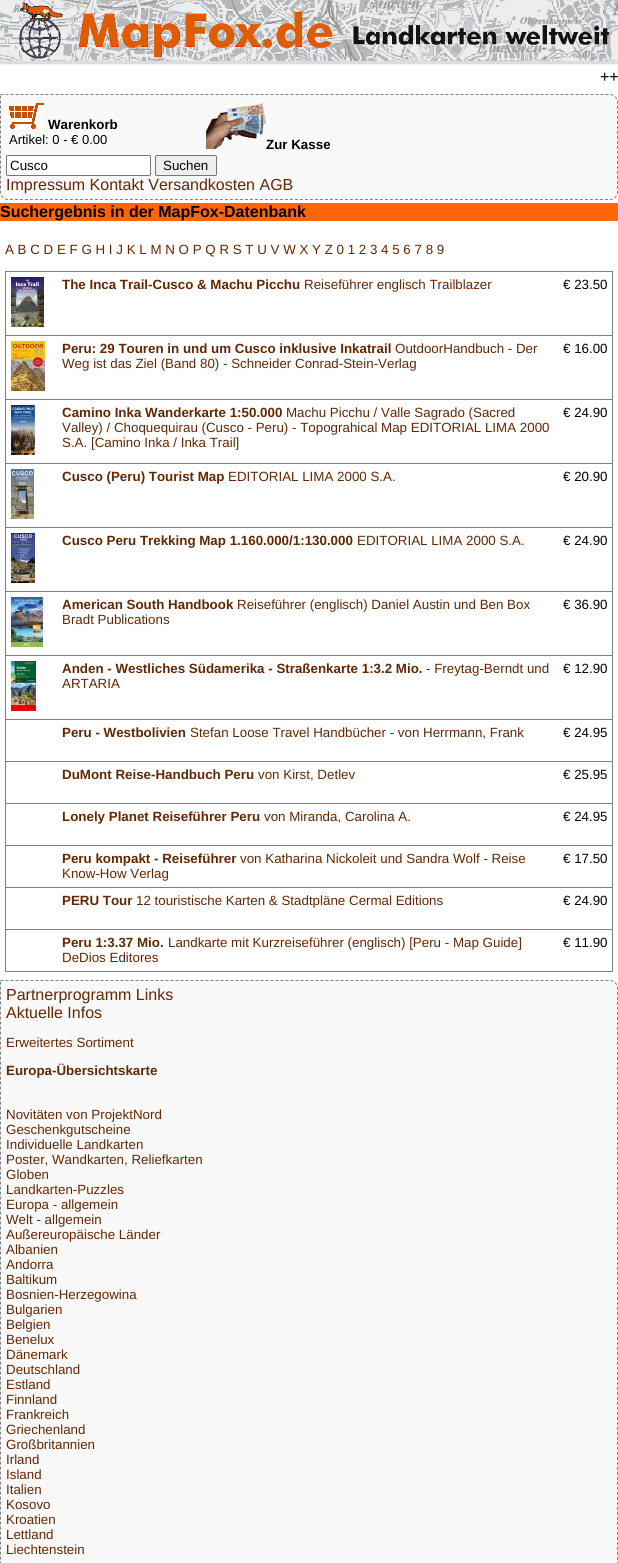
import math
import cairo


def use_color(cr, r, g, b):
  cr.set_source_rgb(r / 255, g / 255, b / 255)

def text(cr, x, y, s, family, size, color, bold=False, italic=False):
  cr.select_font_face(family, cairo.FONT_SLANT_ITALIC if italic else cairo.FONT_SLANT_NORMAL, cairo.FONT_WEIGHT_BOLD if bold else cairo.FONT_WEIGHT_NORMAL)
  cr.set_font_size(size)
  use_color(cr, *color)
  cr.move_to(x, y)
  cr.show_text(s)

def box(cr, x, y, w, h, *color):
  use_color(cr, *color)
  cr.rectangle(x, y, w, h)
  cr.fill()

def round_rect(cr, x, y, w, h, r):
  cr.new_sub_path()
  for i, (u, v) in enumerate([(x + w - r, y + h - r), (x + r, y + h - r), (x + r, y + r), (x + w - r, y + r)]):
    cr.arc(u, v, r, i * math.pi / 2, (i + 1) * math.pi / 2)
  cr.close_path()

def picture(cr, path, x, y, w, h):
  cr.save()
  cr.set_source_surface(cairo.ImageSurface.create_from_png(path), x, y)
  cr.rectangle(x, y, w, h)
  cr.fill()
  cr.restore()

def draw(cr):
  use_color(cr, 255, 255, 255)
  cr.paint()
  box(cr, 0, 64, 618, 1, 241, 241, 241)
  picture(cr, "img_01.png", 0, 0, 618, 61)
  box(cr, 0, 61, 618, 3, 221, 221, 221)
  use_color(cr, 249, 249, 249)
  cr.new_path()
  cr.move_to(0, 94)
  cr.line_to(610, 94)
  cr.curve_to(614.5, 94, 618, 97.5, 618, 102)
  cr.line_to(618, 192)
  cr.curve_to(618, 196.5, 614.5, 200, 610, 200)
  cr.line_to(8, 200)
  cr.curve_to(3.5, 200, 0, 196.5, 0, 192)
  cr.close_path()
  cr.fill()
  cr.new_path()
  cr.move_to(0.5, 94.5)
  cr.line_to(610, 94.5)
  cr.curve_to(614, 94.5, 617.5, 98, 617.5, 102)
  cr.line_to(617.5, 192)
  cr.curve_to(617.5, 196, 614, 199.5, 610, 199.5)
  cr.line_to(8, 199.5)
  cr.curve_to(4, 199.5, 0.5, 196, 0.5, 192)
  cr.close_path()
  use_color(cr, 128, 128, 128)
  cr.set_line_width(1)
  cr.set_dash([3, 2])
  cr.stroke()
  picture(cr, "img_02.png", 9, 103, 35, 26)
  picture(cr, "img_03.png", 206, 103, 60, 46)
  use_color(cr, 255, 255, 255)
  round_rect(cr, 6.5, 155.5, 144, 20, 1.5)
  cr.fill_preserve()
  use_color(cr, 118, 118, 118)
  cr.set_dash([])
  cr.stroke()
  use_color(cr, 239, 239, 239)
  round_rect(cr, 155.5, 155.5, 61, 20, 1.5)
  cr.fill_preserve()
  use_color(cr, 118, 118, 118)
  cr.stroke()
  box(cr, 0, 203, 618, 18, 255, 100, 5)
  box(cr, 5, 271, 608, 1, 128, 128, 128)
  box(cr, 612, 271, 1, 701, 128, 128, 128)
  box(cr, 5, 971, 608, 1, 128, 128, 128)
  box(cr, 5, 271, 1, 701, 128, 128, 128)
  picture(cr, "img_04.png", 11, 277, 33, 50)
  picture(cr, "img_05.png", 11, 341, 34, 50)
  box(cr, 5, 335, 608, 1, 128, 128, 128)
  picture(cr, "img_06.png", 11, 405, 24, 50)
  box(cr, 5, 399, 608, 1, 128, 128, 128)
  picture(cr, "img_07.png", 11, 469, 23, 50)
  box(cr, 5, 463, 608, 1, 128, 128, 128)
  picture(cr, "img_08.png", 11, 533, 24, 50)
  box(cr, 5, 527, 608, 1, 128, 128, 128)
  picture(cr, "img_09.png", 11, 597, 32, 50)
  box(cr, 5, 591, 608, 1, 128, 128, 128)
  picture(cr, "img_10.png", 11, 661, 25, 50)
  box(cr, 5, 655, 608, 1, 128, 128, 128)
  box(cr, 5, 719, 608, 1, 128, 128, 128)
  box(cr, 5, 761, 608, 1, 128, 128, 128)
  box(cr, 5, 803, 608, 1, 128, 128, 128)
  box(cr, 5, 845, 608, 1, 128, 128, 128)
  box(cr, 5, 887, 608, 1, 128, 128, 128)
  box(cr, 5, 929, 608, 1, 128, 128, 128)
  use_color(cr, 249, 249, 249)
  cr.new_path()
  cr.move_to(0, 980)
  cr.line_to(610, 980)
  cr.curve_to(614.5, 980, 618, 983.5, 618, 988)
  cr.line_to(618, 1563)
  cr.curve_to(618, 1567.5, 614.5, 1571, 610, 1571)
  cr.line_to(8, 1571)
  cr.curve_to(3.5, 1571, 0, 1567.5, 0, 1563)
  cr.close_path()
  cr.fill()
  cr.new_path()
  cr.move_to(0.5, 980.5)
  cr.line_to(610, 980.5)
  cr.curve_to(614, 980.5, 617.5, 984, 617.5, 988)
  cr.line_to(617.5, 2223)
  cr.curve_to(617.5, 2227, 614, 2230.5, 610, 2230.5)
  cr.line_to(8, 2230.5)
  cr.curve_to(4, 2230.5, 0.5, 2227, 0.5, 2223)
  cr.close_path()
  use_color(cr, 128, 128, 128)
  cr.set_dash([3, 2])
  cr.stroke()
  text(cr, 600, 82, "++", "Liberation Sans", 16, (0, 0, 0))
  text(cr, 48, 129, "Warenkorb", "Liberation Sans", 13.35, (0, 0, 0), bold=True)
  text(cr, 9, 144, "Artikel: 0 - € 0.00", "Liberation Sans", 13, (0, 0, 0))
  text(cr, 266, 149, "Zur Kasse", "Liberation Sans", 13.35, (0, 0, 0), bold=True)
  text(cr, 10, 170, "Cusco", "Liberation Sans", 13.35, (0, 0, 0))
  text(cr, 163, 170, "Suchen", "Liberation Sans", 13.35, (0, 0, 0))
  text(cr, 6, 190, "Impressum Kontakt Versandkosten AGB", "Liberation Sans", 16, (100, 39, 2))
  text(cr, 0, 217, "Suchergebnis in der MapFox-Datenbank", "Liberation Sans", 16, (0, 0, 0), bold=True)
  text(cr, 5, 254, "A B C D E F G H I J K L M N O P Q R S T U V W X Y Z 0 1 2 3 4 5 6 7 8 9", "Liberation Sans", 13.35, (100, 39, 2))
  text(cr, 62, 289, "The Inca Trail-Cusco & Machu Picchu", "Liberation Sans", 13.35, (100, 39, 2), bold=True)
  text(cr, 304, 289, "Reiseführer englisch Trailblazer", "Liberation Sans", 13.35, (100, 39, 2))
  text(cr, 563, 289, "€ 23.50", "Liberation Sans", 13.35, (0, 0, 0))
  text(cr, 62, 353, "Peru: 29 Touren in und um Cusco inklusive Inkatrail", "Liberation Sans", 13.35, (100, 39, 2), bold=True)
  text(cr, 395, 353, "OutdoorHandbuch - Der", "Liberation Sans", 13.35, (100, 39, 2))
  text(cr, 62, 368, "Weg ist das Ziel (Band 80) - Schneider Conrad-Stein-Verlag", "Liberation Sans", 13.35, (100, 39, 2))
  text(cr, 563, 353, "€ 16.00", "Liberation Sans", 13.35, (0, 0, 0))
  text(cr, 62, 417, "Camino Inka Wanderkarte 1:50.000", "Liberation Sans", 13.35, (100, 39, 2), bold=True)
  text(cr, 286, 417, "Machu Picchu / Valle Sagrado (Sacred", "Liberation Sans", 13.35, (100, 39, 2))
  text(cr, 62, 432, "Valley) / Choquequirau (Cusco - Peru) - Topograhical Map EDITORIAL LIMA 2000", "Liberation Sans", 13.35, (100, 39, 2))
  text(cr, 62, 447, "S.A. [Camino Inka / Inka Trail]", "Liberation Sans", 13.35, (100, 39, 2))
  text(cr, 563, 417, "€ 24.90", "Liberation Sans", 13.35, (0, 0, 0))
  text(cr, 62, 481, "Cusco (Peru) Tourist Map", "Liberation Sans", 13.35, (100, 39, 2), bold=True)
  text(cr, 228, 481, "EDITORIAL LIMA 2000 S.A.", "Liberation Sans", 13.35, (100, 39, 2))
  text(cr, 563, 481, "€ 20.90", "Liberation Sans", 13.35, (0, 0, 0))
  text(cr, 62, 545, "Cusco Peru Trekking Map 1.160.000/1:130.000", "Liberation Sans", 13.35, (100, 39, 2), bold=True)
  text(cr, 357, 545, "EDITORIAL LIMA 2000 S.A.", "Liberation Sans", 13.35, (100, 39, 2))
  text(cr, 563, 545, "€ 24.90", "Liberation Sans", 13.35, (0, 0, 0))
  text(cr, 62, 609, "American South Handbook", "Liberation Sans", 13.35, (100, 39, 2), bold=True)
  text(cr, 237, 609, "Reiseführer (englisch) Daniel Austin und Ben Box", "Liberation Sans", 13.35, (100, 39, 2))
  text(cr, 62, 624, "Bradt Publications", "Liberation Sans", 13.35, (100, 39, 2))
  text(cr, 563, 609, "€ 36.90", "Liberation Sans", 13.35, (0, 0, 0))
  text(cr, 62, 673, "Anden - Westliches Südamerika - Straßenkarte 1:3.2 Mio.", "Liberation Sans", 13.35, (100, 39, 2), bold=True)
  text(cr, 426, 673, "- Freytag-Berndt und", "Liberation Sans", 13.35, (100, 39, 2))
  text(cr, 62, 688, "ARTARIA", "Liberation Sans", 13.35, (100, 39, 2))
  text(cr, 563, 673, "€ 12.90", "Liberation Sans", 13.35, (0, 0, 0))
  text(cr, 62, 737, "Peru - Westbolivien", "Liberation Sans", 13.35, (100, 39, 2), bold=True)
  text(cr, 190, 737, "Stefan Loose Travel Handbücher - von Herrmann, Frank", "Liberation Sans", 13.35, (100, 39, 2))
  text(cr, 563, 737, "€ 24.95", "Liberation Sans", 13.35, (0, 0, 0))
  text(cr, 62, 779, "DuMont Reise-Handbuch Peru", "Liberation Sans", 13.35, (100, 39, 2), bold=True)
  text(cr, 258, 779, "von Kirst, Detlev", "Liberation Sans", 13.35, (100, 39, 2))
  text(cr, 563, 779, "€ 25.95", "Liberation Sans", 13.35, (0, 0, 0))
  text(cr, 62, 821, "Lonely Planet Reiseführer Peru", "Liberation Sans", 13.35, (100, 39, 2), bold=True)
  text(cr, 264, 821, "von Miranda, Carolina A.", "Liberation Sans", 13.35, (100, 39, 2))
  text(cr, 563, 821, "€ 24.95", "Liberation Sans", 13.35, (0, 0, 0))
  text(cr, 62, 863, "Peru kompakt - Reiseführer", "Liberation Sans", 13.35, (100, 39, 2), bold=True)
  text(cr, 240, 863, "von Katharina Nickoleit und Sandra Wolf - Reise", "Liberation Sans", 13.35, (100, 39, 2))
  text(cr, 62, 878, "Know-How Verlag", "Liberation Sans", 13.35, (100, 39, 2))
  text(cr, 563, 863, "€ 17.50", "Liberation Sans", 13.35, (0, 0, 0))
  text(cr, 62, 905, "PERU Tour", "Liberation Sans", 13.35, (100, 39, 2), bold=True)
  text(cr, 136, 905, "12 touristische Karten & Stadtpläne Cermal Editions", "Liberation Sans", 13.35, (100, 39, 2))
  text(cr, 563, 905, "€ 24.90", "Liberation Sans", 13.35, (0, 0, 0))
  text(cr, 62, 947, "Peru 1:3.37 Mio.", "Liberation Sans", 13.35, (100, 39, 2), bold=True)
  text(cr, 168, 947, "Landkarte mit Kurzreiseführer (englisch) [Peru - Map Guide]", "Liberation Sans", 13.35, (100, 39, 2))
  text(cr, 62, 962, "DeDios Editores", "Liberation Sans", 13.35, (100, 39, 2))
  text(cr, 563, 947, "€ 11.90", "Liberation Sans", 13.35, (0, 0, 0))
  text(cr, 6, 1000, "Partnerprogramm Links", "Liberation Sans", 16, (100, 39, 2))
  text(cr, 6, 1018, "Aktuelle Infos", "Liberation Sans", 16, (100, 39, 2))
  text(cr, 6, 1047, "Erweitertes Sortiment", "Liberation Sans", 13.35, (100, 39, 2))
  text(cr, 6, 1075, "Europa-Übersichtskarte", "Liberation Sans", 13.35, (100, 39, 2), bold=True)
  text(cr, 6, 1119, "Novitäten von ProjektNord", "Liberation Sans", 13.35, (100, 39, 2))
  text(cr, 6, 1134, "Geschenkgutscheine", "Liberation Sans", 13.35, (100, 39, 2))
  text(cr, 6, 1149, "Individuelle Landkarten", "Liberation Sans", 13.35, (100, 39, 2))
  text(cr, 6, 1164, "Poster, Wandkarten, Reliefkarten", "Liberation Sans", 13.35, (100, 39, 2))
  text(cr, 6, 1179, "Globen", "Liberation Sans", 13.35, (100, 39, 2))
  text(cr, 6, 1194, "Landkarten-Puzzles", "Liberation Sans", 13.35, (100, 39, 2))
  text(cr, 6, 1209, "Europa - allgemein", "Liberation Sans", 13.35, (100, 39, 2))
  text(cr, 6, 1224, "Welt - allgemein", "Liberation Sans", 13.35, (100, 39, 2))
  text(cr, 6, 1239, "Außereuropäische Länder", "Liberation Sans", 13.35, (100, 39, 2))
  text(cr, 6, 1254, "Albanien", "Liberation Sans", 13.35, (100, 39, 2))
  text(cr, 6, 1269, "Andorra", "Liberation Sans", 13.35, (100, 39, 2))
  text(cr, 6, 1284, "Baltikum", "Liberation Sans", 13.35, (100, 39, 2))
  text(cr, 6, 1299, "Bosnien-Herzegowina", "Liberation Sans", 13.35, (100, 39, 2))
  text(cr, 6, 1314, "Bulgarien", "Liberation Sans", 13.35, (100, 39, 2))
  text(cr, 6, 1329, "Belgien", "Liberation Sans", 13.35, (100, 39, 2))
  text(cr, 6, 1344, "Benelux", "Liberation Sans", 13.35, (100, 39, 2))
  text(cr, 6, 1359, "Dänemark", "Liberation Sans", 13.35, (100, 39, 2))
  text(cr, 6, 1374, "Deutschland", "Liberation Sans", 13.35, (100, 39, 2))
  text(cr, 6, 1389, "Estland", "Liberation Sans", 13.35, (100, 39, 2))
  text(cr, 6, 1404, "Finnland", "Liberation Sans", 13.35, (100, 39, 2))
  text(cr, 6, 1419, "Frankreich", "Liberation Sans", 13.35, (100, 39, 2))
  text(cr, 6, 1434, "Griechenland", "Liberation Sans", 13.35, (100, 39, 2))
  text(cr, 6, 1449, "Großbritannien", "Liberation Sans", 13.35, (100, 39, 2))
  text(cr, 6, 1464, "Irland", "Liberation Sans", 13.35, (100, 39, 2))
  text(cr, 6, 1479, "Island", "Liberation Sans", 13.35, (100, 39, 2))
  text(cr, 6, 1494, "Italien", "Liberation Sans", 13.35, (100, 39, 2))
  text(cr, 6, 1509, "Kosovo", "Liberation Sans", 13.35, (100, 39, 2))
  text(cr, 6, 1524, "Kroatien", "Liberation Sans", 13.35, (100, 39, 2))
  text(cr, 6, 1539, "Lettland", "Liberation Sans", 13.35, (100, 39, 2))
  text(cr, 6, 1554, "Liechtenstein", "Liberation Sans", 13.35, (100, 39, 2))


surface = cairo.ImageSurface(cairo.FORMAT_RGB24, 618, 1563)
cr = cairo.Context(surface)
options = cairo.FontOptions()
options.set_hint_metrics(cairo.HINT_METRICS_OFF)
options.set_hint_style(cairo.HINT_STYLE_NONE)
cr.set_font_options(options)
cr.set_miter_limit(4)
draw(cr)
surface.write_to_png("out.png")
